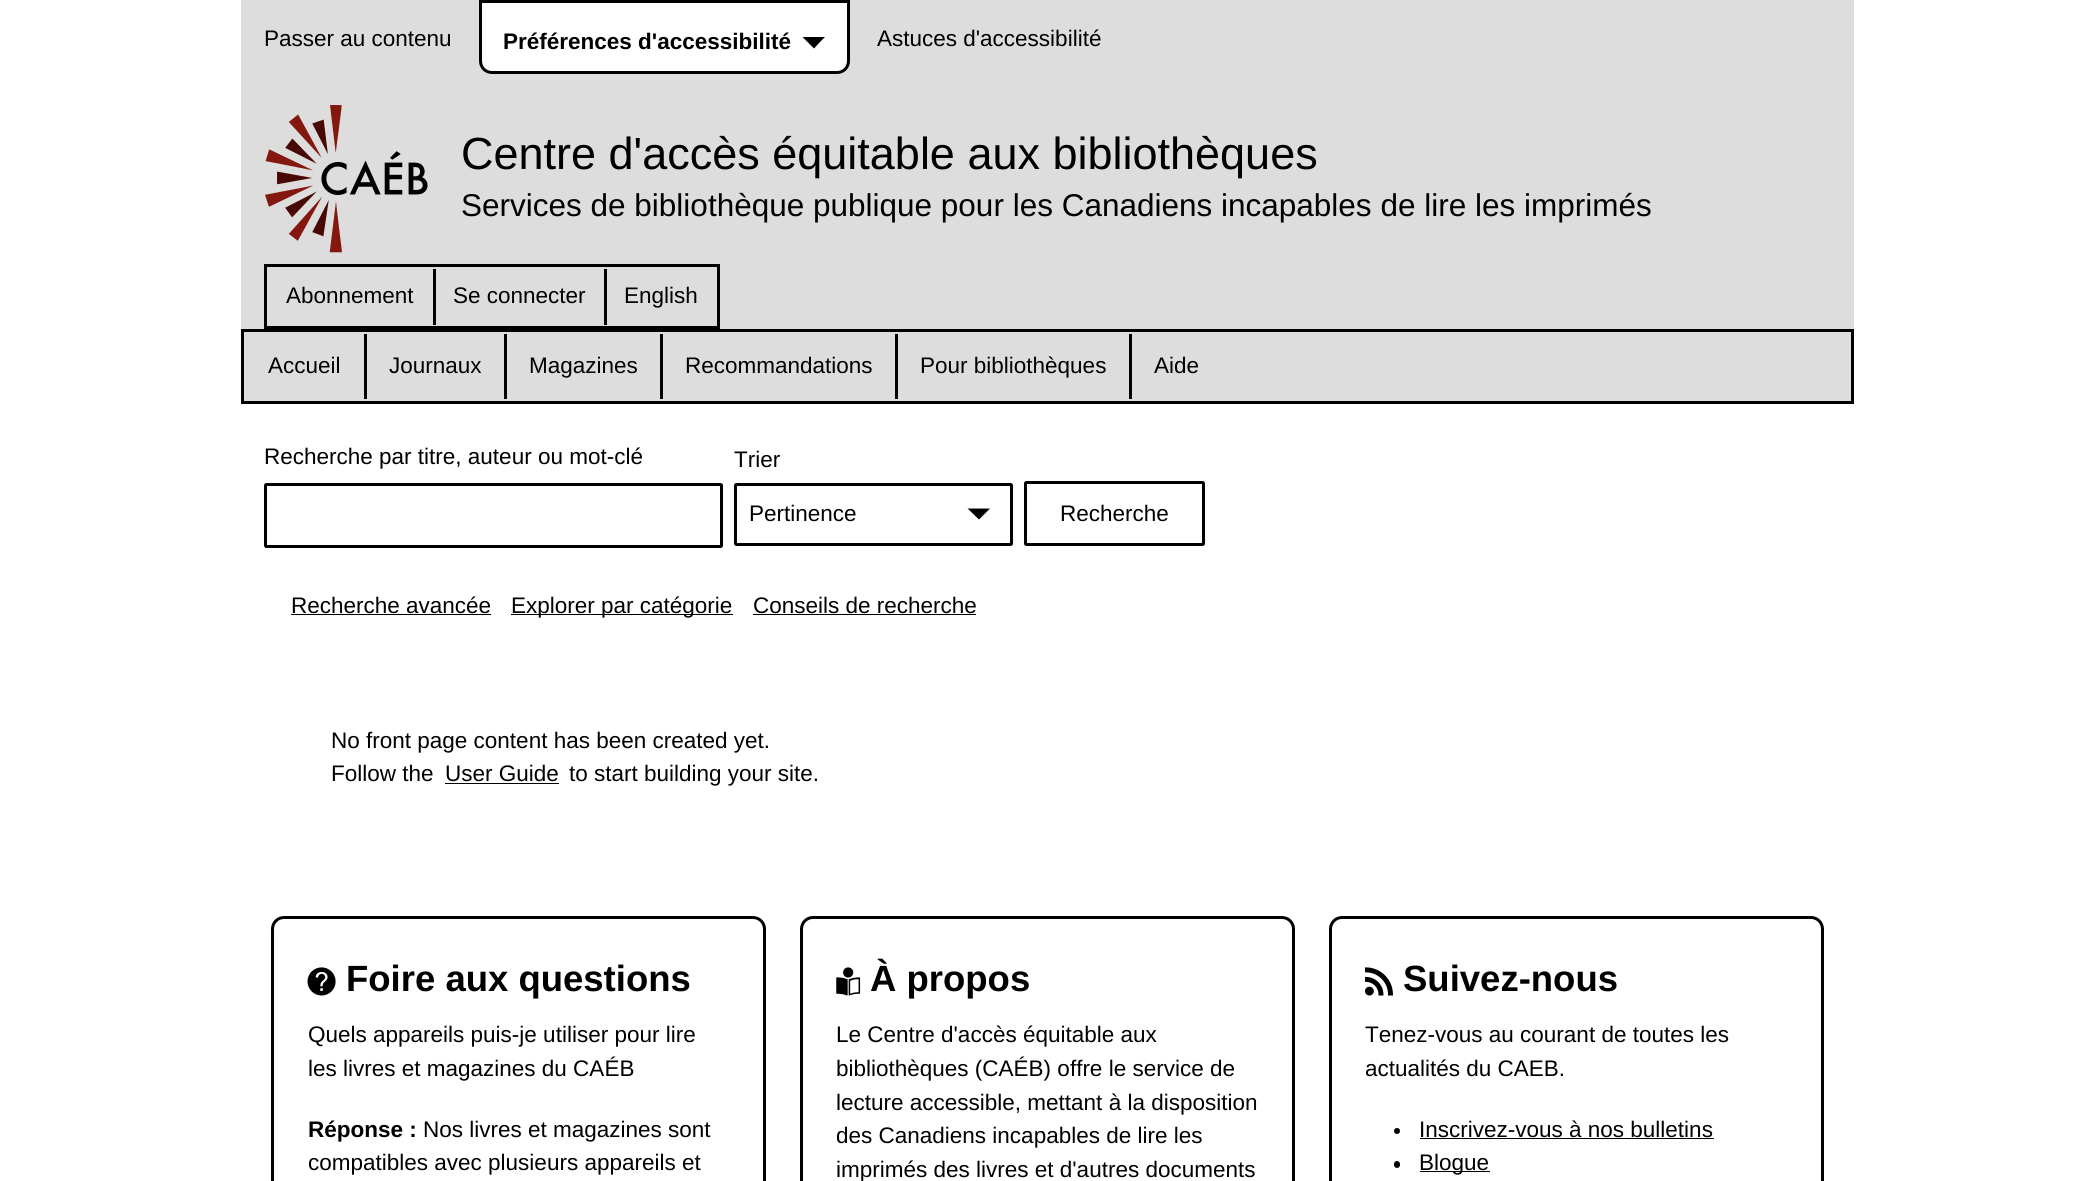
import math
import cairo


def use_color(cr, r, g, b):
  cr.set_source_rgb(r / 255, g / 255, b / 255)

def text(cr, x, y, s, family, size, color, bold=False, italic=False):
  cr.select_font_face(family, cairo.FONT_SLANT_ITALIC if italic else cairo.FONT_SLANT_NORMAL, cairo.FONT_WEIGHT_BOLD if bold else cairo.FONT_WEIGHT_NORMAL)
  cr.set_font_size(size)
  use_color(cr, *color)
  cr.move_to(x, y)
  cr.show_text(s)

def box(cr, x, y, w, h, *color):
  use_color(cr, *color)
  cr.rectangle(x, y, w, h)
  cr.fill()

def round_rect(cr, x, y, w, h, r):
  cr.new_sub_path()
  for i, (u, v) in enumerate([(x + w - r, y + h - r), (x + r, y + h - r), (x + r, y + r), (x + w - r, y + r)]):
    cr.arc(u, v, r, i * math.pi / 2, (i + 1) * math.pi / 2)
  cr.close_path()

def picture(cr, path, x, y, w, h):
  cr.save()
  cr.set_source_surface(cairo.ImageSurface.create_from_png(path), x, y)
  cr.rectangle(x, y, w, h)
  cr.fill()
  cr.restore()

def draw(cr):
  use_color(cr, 255, 255, 255)
  cr.paint()
  box(cr, 241, 0, 1613, 401, 221, 221, 221)
  use_color(cr, 255, 255, 255)
  cr.new_path()
  cr.move_to(480.5, 1.5)
  cr.line_to(848.5, 1.5)
  cr.line_to(848.5, 61)
  cr.curve_to(848.5, 67.5, 843.5, 72.5, 837, 72.5)
  cr.line_to(492, 72.5)
  cr.curve_to(485.5, 72.5, 480.5, 67.5, 480.5, 61)
  cr.close_path()
  cr.fill_preserve()
  use_color(cr, 0, 0, 0)
  cr.set_line_width(3)
  cr.stroke()
  cr.new_path()
  cr.move_to(819.5, 42.5)
  cr.line_to(814, 48.5)
  cr.line_to(802.5, 37)
  cr.line_to(825, 37)
  cr.close_path()
  cr.fill()
  picture(cr, "img_01.png", 265, 105, 163, 148)
  cr.rectangle(265.5, 265.5, 453, 62)
  cr.stroke()
  box(cr, 433, 269, 3, 56, 0, 0, 0)
  box(cr, 604, 269, 3, 56, 0, 0, 0)
  cr.rectangle(242.5, 330.5, 1610, 72)
  cr.stroke()
  box(cr, 364, 334, 3, 65, 0, 0, 0)
  box(cr, 504, 334, 3, 65, 0, 0, 0)
  box(cr, 660, 334, 3, 65, 0, 0, 0)
  box(cr, 895, 334, 3, 65, 0, 0, 0)
  box(cr, 1129, 334, 3, 65, 0, 0, 0)
  round_rect(cr, 265.5, 484.5, 456, 62, 1)
  cr.stroke()
  cr.new_path()
  cr.move_to(984.5, 514)
  cr.line_to(979, 519.5)
  cr.line_to(967.5, 508.5)
  cr.line_to(990, 508.5)
  cr.close_path()
  cr.fill()
  round_rect(cr, 735.5, 484.5, 276, 60, 1)
  cr.stroke()
  round_rect(cr, 1025.5, 482.5, 178, 62, 1)
  cr.stroke()
  box(cr, 291, 614, 200, 1, 0, 0, 0)
  box(cr, 511, 614, 222, 1, 0, 0, 0)
  box(cr, 753, 614, 223, 1, 0, 0, 0)
  box(cr, 445, 783, 114, 1, 0, 0, 0)
  round_rect(cr, 272.5, 917.5, 492, 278, 11.5)
  cr.stroke()
  picture(cr, "img_02.png", 307, 967, 29, 29)
  round_rect(cr, 801.5, 917.5, 492, 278, 11.5)
  cr.stroke()
  picture(cr, "img_03.png", 836, 967, 25, 29)
  round_rect(cr, 1330.5, 917.5, 492, 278, 11.5)
  cr.stroke()
  picture(cr, "img_04.png", 1365, 967, 28, 29)
  cr.arc(1397, 1131, 3, 0, 2 * math.pi)
  cr.fill()
  box(cr, 1420, 1138, 294, 1, 0, 0, 0)
  round_rect(cr, 1394, 1161, 6, 7, 3)
  cr.fill()
  box(cr, 1420, 1171, 70, 1, 0, 0, 0)
  text(cr, 264, 46, "Passer au contenu", "Liberation Sans", 22.5, (0, 0, 0))
  text(cr, 503, 49, "Préférences d'accessibilité", "Liberation Sans", 22.5, (0, 0, 0), bold=True)
  text(cr, 877, 46, "Astuces d'accessibilité", "Liberation Sans", 22.5, (0, 0, 0))
  text(cr, 461, 169, "Centre d'accès équitable aux bibliothèques", "Liberation Sans", 45, (0, 0, 0))
  text(cr, 461, 216, "Services de bibliothèque publique pour les Canadiens incapables de lire les imprimés", "Liberation Sans", 31.5, (0, 0, 0))
  text(cr, 286, 303, "Abonnement", "Liberation Sans", 22.5, (0, 0, 0))
  text(cr, 453, 303, "Se connecter", "Liberation Sans", 22.5, (0, 0, 0))
  text(cr, 624, 303, "English", "Liberation Sans", 22.5, (0, 0, 0))
  text(cr, 268, 373, "Accueil", "Liberation Sans", 22.5, (0, 0, 0))
  text(cr, 389, 373, "Journaux", "Liberation Sans", 22.5, (0, 0, 0))
  text(cr, 529, 373, "Magazines", "Liberation Sans", 22.5, (0, 0, 0))
  text(cr, 685, 373, "Recommandations", "Liberation Sans", 22.5, (0, 0, 0))
  text(cr, 920, 373, "Pour bibliothèques", "Liberation Sans", 22.5, (0, 0, 0))
  text(cr, 1154, 373, "Aide", "Liberation Sans", 22.5, (0, 0, 0))
  text(cr, 264, 464, "Recherche par titre, auteur ou mot-clé", "Liberation Sans", 22.5, (0, 0, 0))
  text(cr, 734, 467, "Trier", "Liberation Sans", 22.5, (0, 0, 0))
  text(cr, 749, 521, "Pertinence", "Liberation Sans", 22.5, (0, 0, 0))
  text(cr, 1060, 521, "Recherche", "Liberation Sans", 22.5, (0, 0, 0))
  text(cr, 291, 613, "Recherche avancée", "Liberation Sans", 22.5, (0, 0, 0))
  text(cr, 511, 613, "Explorer par catégorie", "Liberation Sans", 22.5, (0, 0, 0))
  text(cr, 753, 613, "Conseils de recherche", "Liberation Sans", 22.5, (0, 0, 0))
  text(cr, 331, 748, "No front page content has been created yet.", "Liberation Sans", 22.5, (0, 0, 0))
  text(cr, 331, 781, "Follow the", "Liberation Sans", 22.5, (0, 0, 0))
  text(cr, 445, 781, "User Guide", "Liberation Sans", 22.5, (0, 0, 0))
  text(cr, 569, 781, "to start building your site.", "Liberation Sans", 22.5, (0, 0, 0))
  text(cr, 346, 991, "Foire aux questions", "Liberation Sans", 36.5, (0, 0, 0), bold=True)
  text(cr, 308, 1042, "Quels appareils puis-je utiliser pour lire", "Liberation Sans", 22.5, (0, 0, 0))
  text(cr, 308, 1076, "les livres et magazines du CAÉB", "Liberation Sans", 22.5, (0, 0, 0))
  text(cr, 308, 1137, "Réponse :", "Liberation Sans", 22.5, (0, 0, 0), bold=True)
  text(cr, 423, 1137, "Nos livres et magazines sont", "Liberation Sans", 22.5, (0, 0, 0))
  text(cr, 308, 1170, "compatibles avec plusieurs appareils et", "Liberation Sans", 22.5, (0, 0, 0))
  text(cr, 870, 991, "À propos", "Liberation Sans", 36.5, (0, 0, 0), bold=True)
  text(cr, 836, 1042, "Le Centre d'accès équitable aux", "Liberation Sans", 22.5, (0, 0, 0))
  text(cr, 836, 1076, "bibliothèques (CAÉB) offre le service de", "Liberation Sans", 22.5, (0, 0, 0))
  text(cr, 836, 1110, "lecture accessible, mettant à la disposition", "Liberation Sans", 22.5, (0, 0, 0))
  text(cr, 836, 1143, "des Canadiens incapables de lire les", "Liberation Sans", 22.5, (0, 0, 0))
  text(cr, 836, 1177, "imprimés des livres et d'autres documents", "Liberation Sans", 22.5, (0, 0, 0))
  text(cr, 1403, 991, "Suivez-nous", "Liberation Sans", 36.5, (0, 0, 0), bold=True)
  text(cr, 1365, 1042, "Tenez-vous au courant de toutes les", "Liberation Sans", 22.5, (0, 0, 0))
  text(cr, 1365, 1076, "actualités du CAEB.", "Liberation Sans", 22.5, (0, 0, 0))
  text(cr, 1419, 1137, "Inscrivez-vous à nos bulletins", "Liberation Sans", 22.5, (0, 0, 0))
  text(cr, 1419, 1170, "Blogue", "Liberation Sans", 22.5, (0, 0, 0))


surface = cairo.ImageSurface(cairo.FORMAT_RGB24, 2094, 1181)
cr = cairo.Context(surface)
options = cairo.FontOptions()
options.set_hint_metrics(cairo.HINT_METRICS_OFF)
options.set_hint_style(cairo.HINT_STYLE_NONE)
cr.set_font_options(options)
cr.set_miter_limit(4)
draw(cr)
surface.write_to_png("out.png")
